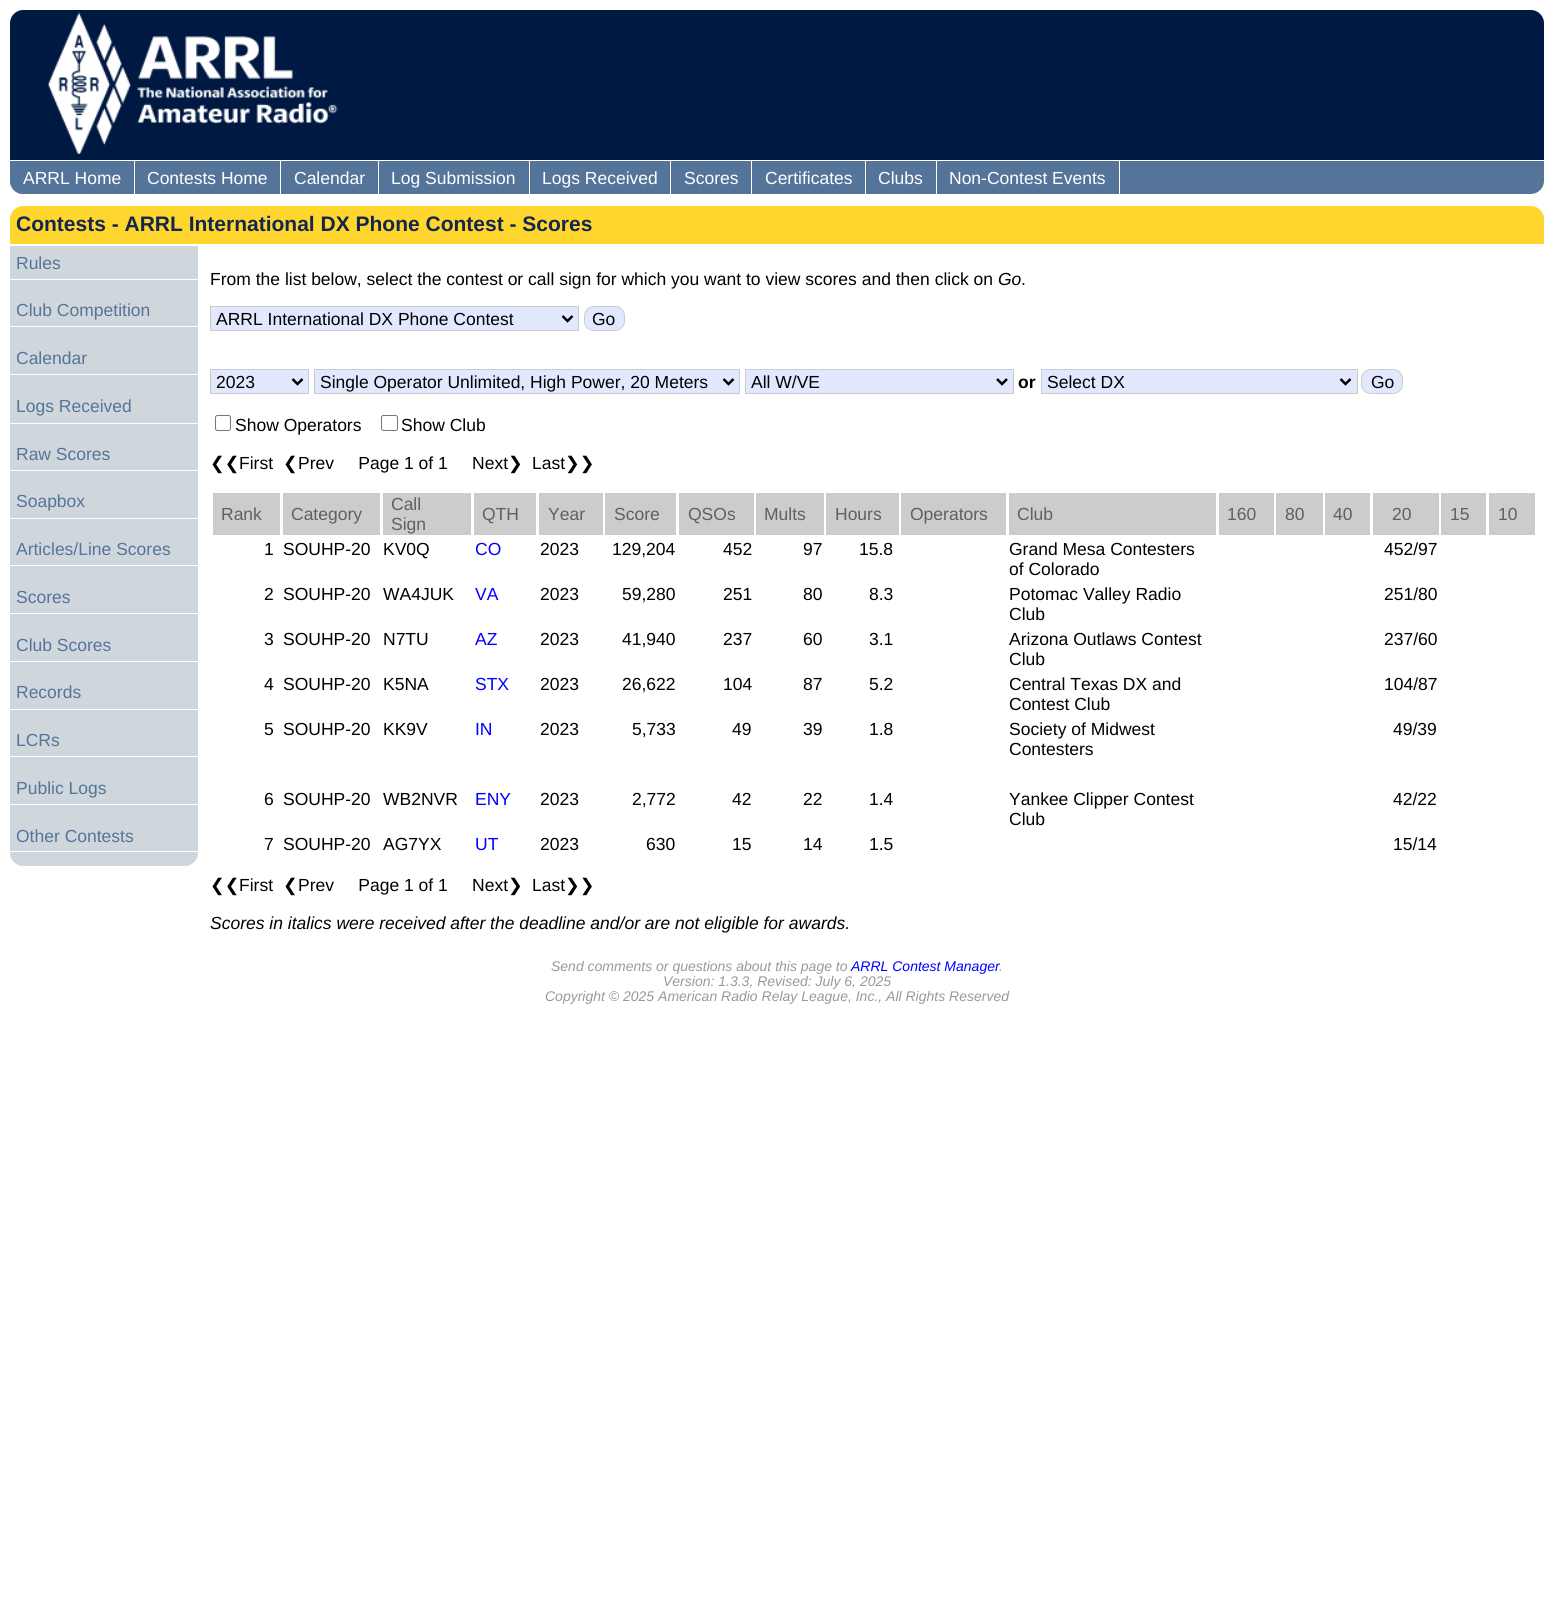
import math
import cairo


def use_color(cr, r, g, b):
  cr.set_source_rgb(r / 255, g / 255, b / 255)

def text(cr, x, y, s, family, size, color, bold=False, italic=False):
  cr.select_font_face(family, cairo.FONT_SLANT_ITALIC if italic else cairo.FONT_SLANT_NORMAL, cairo.FONT_WEIGHT_BOLD if bold else cairo.FONT_WEIGHT_NORMAL)
  cr.set_font_size(size)
  use_color(cr, *color)
  cr.move_to(x, y)
  cr.show_text(s)

def box(cr, x, y, w, h, *color):
  use_color(cr, *color)
  cr.rectangle(x, y, w, h)
  cr.fill()

def round_rect(cr, x, y, w, h, r):
  cr.new_sub_path()
  for i, (u, v) in enumerate([(x + w - r, y + h - r), (x + r, y + h - r), (x + r, y + r), (x + w - r, y + r)]):
    cr.arc(u, v, r, i * math.pi / 2, (i + 1) * math.pi / 2)
  cr.close_path()

def picture(cr, path, x, y, w, h):
  cr.save()
  cr.set_source_surface(cairo.ImageSurface.create_from_png(path), x, y)
  cr.rectangle(x, y, w, h)
  cr.fill()
  cr.restore()

def draw(cr):
  use_color(cr, 255, 255, 255)
  cr.paint()
  use_color(cr, 0, 25, 67)
  cr.new_path()
  cr.move_to(23, 10)
  cr.line_to(1531, 10)
  cr.curve_to(1538, 10, 1544, 16, 1544, 23)
  cr.line_to(1544, 160)
  cr.line_to(10, 160)
  cr.line_to(10, 23)
  cr.curve_to(10, 16, 16, 10, 23, 10)
  cr.close_path()
  cr.fill()
  picture(cr, "img_01.png", 22, 10, 316, 144)
  use_color(cr, 85, 116, 153)
  cr.new_path()
  cr.move_to(10, 161)
  cr.line_to(1544, 161)
  cr.line_to(1544, 181)
  cr.curve_to(1544, 188, 1538, 194, 1531, 194)
  cr.line_to(23, 194)
  cr.curve_to(16, 194, 10, 188, 10, 181)
  cr.close_path()
  cr.fill()
  cr.new_path()
  cr.move_to(10, 161)
  cr.line_to(135, 161)
  cr.line_to(135, 194)
  cr.line_to(23, 194)
  cr.curve_to(16, 194, 10, 188, 10, 181)
  cr.close_path()
  cr.fill()
  box(cr, 134, 161, 1, 33, 255, 255, 255)
  box(cr, 280, 161, 1, 33, 255, 255, 255)
  box(cr, 378, 161, 1, 33, 255, 255, 255)
  box(cr, 529, 161, 1, 33, 255, 255, 255)
  box(cr, 670, 161, 1, 33, 255, 255, 255)
  box(cr, 751, 161, 1, 33, 255, 255, 255)
  box(cr, 865, 161, 1, 33, 255, 255, 255)
  box(cr, 936, 161, 1, 33, 255, 255, 255)
  box(cr, 1119, 161, 1, 33, 255, 255, 255)
  use_color(cr, 254, 214, 46)
  cr.new_path()
  cr.move_to(23, 206)
  cr.line_to(1531, 206)
  cr.curve_to(1538, 206, 1544, 212, 1544, 219)
  cr.line_to(1544, 244)
  cr.line_to(10, 244)
  cr.line_to(10, 219)
  cr.curve_to(10, 212, 16, 206, 23, 206)
  cr.close_path()
  cr.fill()
  use_color(cr, 208, 215, 220)
  cr.new_path()
  cr.move_to(10, 246)
  cr.line_to(198, 246)
  cr.line_to(198, 853)
  cr.curve_to(198, 860, 192, 866, 185, 866)
  cr.line_to(23, 866)
  cr.curve_to(16, 866, 10, 860, 10, 853)
  cr.close_path()
  cr.fill()
  box(cr, 10, 279, 188, 1, 255, 255, 255)
  box(cr, 10, 326, 188, 1, 255, 255, 255)
  box(cr, 10, 374, 188, 1, 255, 255, 255)
  box(cr, 10, 423, 188, 1, 255, 255, 255)
  box(cr, 10, 470, 188, 1, 255, 255, 255)
  box(cr, 10, 518, 188, 1, 255, 255, 255)
  box(cr, 10, 565, 188, 1, 255, 255, 255)
  box(cr, 10, 613, 188, 1, 255, 255, 255)
  box(cr, 10, 661, 188, 1, 255, 255, 255)
  box(cr, 10, 709, 188, 1, 255, 255, 255)
  box(cr, 10, 756, 188, 1, 255, 255, 255)
  box(cr, 10, 804, 188, 1, 255, 255, 255)
  box(cr, 10, 851, 188, 1, 255, 255, 255)
  use_color(cr, 226, 233, 255)
  cr.rectangle(210.5, 306.5, 368, 24)
  cr.fill_preserve()
  use_color(cr, 204, 204, 204)
  cr.set_line_width(1)
  cr.stroke()
  cr.new_path()
  cr.move_to(562.5, 316)
  cr.line_to(567.5, 321)
  cr.line_to(572.5, 316)
  use_color(cr, 0, 0, 0)
  cr.set_line_width(2.5)
  cr.stroke()
  use_color(cr, 226, 233, 255)
  round_rect(cr, 584.5, 306.5, 40, 24, 9.5)
  cr.fill_preserve()
  use_color(cr, 204, 204, 204)
  cr.set_line_width(1)
  cr.stroke()
  use_color(cr, 226, 233, 255)
  cr.rectangle(210.5, 369.5, 98, 24)
  cr.fill_preserve()
  use_color(cr, 204, 204, 204)
  cr.stroke()
  cr.new_path()
  cr.move_to(292.5, 379)
  cr.line_to(297.5, 384)
  cr.line_to(302.5, 379)
  use_color(cr, 0, 0, 0)
  cr.set_line_width(2.5)
  cr.stroke()
  use_color(cr, 226, 233, 255)
  cr.rectangle(314.5, 369.5, 425, 24)
  cr.fill_preserve()
  use_color(cr, 204, 204, 204)
  cr.set_line_width(1)
  cr.stroke()
  cr.new_path()
  cr.move_to(723.5, 379)
  cr.line_to(728.5, 384)
  cr.line_to(733.5, 379)
  use_color(cr, 0, 0, 0)
  cr.set_line_width(2.5)
  cr.stroke()
  use_color(cr, 226, 233, 255)
  cr.rectangle(745.5, 369.5, 268, 24)
  cr.fill_preserve()
  use_color(cr, 204, 204, 204)
  cr.set_line_width(1)
  cr.stroke()
  cr.new_path()
  cr.move_to(997, 379)
  cr.line_to(1002, 384)
  cr.line_to(1007, 379)
  use_color(cr, 0, 0, 0)
  cr.set_line_width(2.5)
  cr.stroke()
  use_color(cr, 226, 233, 255)
  cr.rectangle(1041.5, 369.5, 316, 24)
  cr.fill_preserve()
  use_color(cr, 204, 204, 204)
  cr.set_line_width(1)
  cr.stroke()
  cr.new_path()
  cr.move_to(1340.5, 379)
  cr.line_to(1345.5, 384)
  cr.line_to(1350.5, 379)
  use_color(cr, 0, 0, 0)
  cr.set_line_width(2.5)
  cr.stroke()
  use_color(cr, 226, 233, 255)
  round_rect(cr, 1361.5, 369.5, 41, 24, 9.5)
  cr.fill_preserve()
  use_color(cr, 204, 204, 204)
  cr.set_line_width(1)
  cr.stroke()
  round_rect(cr, 215.5, 415.5, 15, 15, 2)
  use_color(cr, 118, 118, 118)
  cr.stroke()
  round_rect(cr, 381.5, 415.5, 16, 15, 2)
  cr.stroke()
  box(cr, 213, 493, 67, 42, 204, 204, 204)
  box(cr, 283, 493, 97, 42, 204, 204, 204)
  box(cr, 383, 493, 88, 42, 204, 204, 204)
  box(cr, 474, 493, 62, 42, 204, 204, 204)
  box(cr, 539, 493, 64, 42, 204, 204, 204)
  box(cr, 605, 493, 71, 42, 204, 204, 204)
  box(cr, 679, 493, 75, 42, 204, 204, 204)
  box(cr, 756, 493, 68, 42, 204, 204, 204)
  box(cr, 826, 493, 73, 42, 204, 204, 204)
  box(cr, 901, 493, 105, 42, 204, 204, 204)
  box(cr, 1009, 493, 207, 42, 204, 204, 204)
  box(cr, 1219, 493, 55, 42, 204, 204, 204)
  box(cr, 1276, 493, 47, 42, 204, 204, 204)
  box(cr, 1325, 493, 45, 42, 204, 204, 204)
  box(cr, 1373, 493, 66, 42, 204, 204, 204)
  box(cr, 1441, 493, 45, 42, 204, 204, 204)
  box(cr, 1489, 493, 46, 42, 204, 204, 204)
  text(cr, 23, 184, "ARRL Home", "Liberation Sans", 17.5, (255, 255, 255))
  text(cr, 147, 184, "Contests Home", "Liberation Sans", 17.5, (255, 255, 255))
  text(cr, 294, 184, "Calendar", "Liberation Sans", 17.5, (255, 255, 255))
  text(cr, 391, 184, "Log Submission", "Liberation Sans", 17.5, (255, 255, 255))
  text(cr, 542, 184, "Logs Received", "Liberation Sans", 17.5, (255, 255, 255))
  text(cr, 684, 184, "Scores", "Liberation Sans", 17.5, (255, 255, 255))
  text(cr, 765, 184, "Certificates", "Liberation Sans", 17.5, (255, 255, 255))
  text(cr, 878, 184, "Clubs", "Liberation Sans", 17.5, (255, 255, 255))
  text(cr, 949, 184, "Non-Contest Events", "Liberation Sans", 17.5, (255, 255, 255))
  text(cr, 16, 231, "Contests - ARRL International DX Phone Contest - Scores", "Liberation Sans", 21, (20, 38, 77), bold=True)
  text(cr, 16, 269, "Rules", "Liberation Sans", 17.5, (85, 116, 153))
  text(cr, 16, 316, "Club Competition", "Liberation Sans", 17.5, (85, 116, 153))
  text(cr, 16, 364, "Calendar", "Liberation Sans", 17.5, (85, 116, 153))
  text(cr, 16, 412, "Logs Received", "Liberation Sans", 17.5, (85, 116, 153))
  text(cr, 16, 460, "Raw Scores", "Liberation Sans", 17.5, (85, 116, 153))
  text(cr, 16, 507, "Soapbox", "Liberation Sans", 17.5, (85, 116, 153))
  text(cr, 16, 555, "Articles/Line Scores", "Liberation Sans", 17.5, (85, 116, 153))
  text(cr, 16, 603, "Scores", "Liberation Sans", 17.5, (85, 116, 153))
  text(cr, 16, 651, "Club Scores", "Liberation Sans", 17.5, (85, 116, 153))
  text(cr, 16, 698, "Records", "Liberation Sans", 17.5, (85, 116, 153))
  text(cr, 16, 746, "LCRs", "Liberation Sans", 17.5, (85, 116, 153))
  text(cr, 16, 794, "Public Logs", "Liberation Sans", 17.5, (85, 116, 153))
  text(cr, 16, 842, "Other Contests", "Liberation Sans", 17.5, (85, 116, 153))
  text(cr, 210, 285, "From the list below, select the contest or call sign for which you want to view scores and then click on", "Liberation Sans", 17.5, (0, 0, 0))
  text(cr, 998, 285, "Go", "Liberation Sans", 17.5, (0, 0, 0), italic=True)
  text(cr, 1021, 285, ".", "Liberation Sans", 17.5, (0, 0, 0))
  text(cr, 216, 325, "ARRL International DX Phone Contest", "Liberation Sans", 17.5, (0, 0, 0))
  text(cr, 592, 325, "Go", "Liberation Sans", 17.5, (0, 0, 0))
  text(cr, 216, 388, "2023", "Liberation Sans", 17.5, (0, 0, 0))
  text(cr, 320, 388, "Single Operator Unlimited, High Power, 20 Meters", "Liberation Sans", 17.5, (0, 0, 0))
  text(cr, 751, 388, "All W/VE", "Liberation Sans", 17.5, (0, 0, 0))
  text(cr, 1018, 388, "or", "Liberation Sans", 17.5, (0, 0, 0), bold=True)
  text(cr, 1047, 388, "Select DX", "Liberation Sans", 17.5, (0, 0, 0))
  text(cr, 1371, 388, "Go", "Liberation Sans", 17.5, (0, 0, 0))
  text(cr, 235, 431, "Show Operators", "Liberation Sans", 17.5, (0, 0, 0))
  text(cr, 401, 431, "Show Club", "Liberation Sans", 17.5, (0, 0, 0))
  text(cr, 210, 469, "❮❮", "DejaVu Sans", 17.5, (0, 0, 0))
  text(cr, 239, 469, "First", "Liberation Sans", 17.5, (0, 0, 0))
  text(cr, 283, 469, "❮", "DejaVu Sans", 17.5, (0, 0, 0))
  text(cr, 298, 469, "Prev     Page 1 of 1     Next", "Liberation Sans", 17.5, (0, 0, 0))
  text(cr, 508, 469, "❯", "DejaVu Sans", 17.5, (0, 0, 0))
  text(cr, 532, 469, "Last", "Liberation Sans", 17.5, (0, 0, 0))
  text(cr, 565, 469, "❯❯", "DejaVu Sans", 17.5, (0, 0, 0))
  text(cr, 221, 520, "Rank", "Liberation Sans", 17.5, (96, 96, 96))
  text(cr, 291, 520, "Category", "Liberation Sans", 17.5, (96, 96, 96))
  text(cr, 391, 510, "Call", "Liberation Sans", 17.5, (96, 96, 96))
  text(cr, 391, 530, "Sign", "Liberation Sans", 17.5, (96, 96, 96))
  text(cr, 482, 520, "QTH", "Liberation Sans", 17.5, (96, 96, 96))
  text(cr, 548, 520, "Year", "Liberation Sans", 17.5, (96, 96, 96))
  text(cr, 614, 520, "Score", "Liberation Sans", 17.5, (96, 96, 96))
  text(cr, 688, 520, "QSOs", "Liberation Sans", 17.5, (96, 96, 96))
  text(cr, 764, 520, "Mults", "Liberation Sans", 17.5, (96, 96, 96))
  text(cr, 835, 520, "Hours", "Liberation Sans", 17.5, (96, 96, 96))
  text(cr, 910, 520, "Operators", "Liberation Sans", 17.5, (96, 96, 96))
  text(cr, 1017, 520, "Club", "Liberation Sans", 17.5, (96, 96, 96))
  text(cr, 1227, 520, "160", "Liberation Sans", 17.5, (96, 96, 96))
  text(cr, 1285, 520, "80", "Liberation Sans", 17.5, (96, 96, 96))
  text(cr, 1333, 520, "40", "Liberation Sans", 17.5, (96, 96, 96))
  text(cr, 1392, 520, "20", "Liberation Sans", 17.5, (96, 96, 96))
  text(cr, 1450, 520, "15", "Liberation Sans", 17.5, (96, 96, 96))
  text(cr, 1498, 520, "10", "Liberation Sans", 17.5, (96, 96, 96))
  text(cr, 264, 555, "1", "Liberation Sans", 17.5, (0, 0, 0))
  text(cr, 283, 555, "SOUHP-20", "Liberation Sans", 17.5, (0, 0, 0))
  text(cr, 383, 555, "KV0Q", "Liberation Sans", 17.5, (0, 0, 0))
  text(cr, 475, 555, "CO", "Liberation Sans", 17.5, (0, 0, 255))
  text(cr, 540, 555, "2023", "Liberation Sans", 17.5, (0, 0, 0))
  text(cr, 612, 555, "129,204", "Liberation Sans", 17.5, (0, 0, 0))
  text(cr, 723, 555, "452", "Liberation Sans", 17.5, (0, 0, 0))
  text(cr, 803, 555, "97", "Liberation Sans", 17.5, (0, 0, 0))
  text(cr, 859, 555, "15.8", "Liberation Sans", 17.5, (0, 0, 0))
  text(cr, 1009, 555, "Grand Mesa Contesters", "Liberation Sans", 17.5, (0, 0, 0))
  text(cr, 1009, 575, "of Colorado", "Liberation Sans", 17.5, (0, 0, 0))
  text(cr, 1384, 555, "452/97", "Liberation Sans", 17.5, (0, 0, 0))
  text(cr, 264, 600, "2", "Liberation Sans", 17.5, (0, 0, 0))
  text(cr, 283, 600, "SOUHP-20", "Liberation Sans", 17.5, (0, 0, 0))
  text(cr, 383, 600, "WA4JUK", "Liberation Sans", 17.5, (0, 0, 0))
  text(cr, 475, 600, "VA", "Liberation Sans", 17.5, (0, 0, 255))
  text(cr, 540, 600, "2023", "Liberation Sans", 17.5, (0, 0, 0))
  text(cr, 622, 600, "59,280", "Liberation Sans", 17.5, (0, 0, 0))
  text(cr, 723, 600, "251", "Liberation Sans", 17.5, (0, 0, 0))
  text(cr, 803, 600, "80", "Liberation Sans", 17.5, (0, 0, 0))
  text(cr, 869, 600, "8.3", "Liberation Sans", 17.5, (0, 0, 0))
  text(cr, 1009, 600, "Potomac Valley Radio", "Liberation Sans", 17.5, (0, 0, 0))
  text(cr, 1009, 620, "Club", "Liberation Sans", 17.5, (0, 0, 0))
  text(cr, 1384, 600, "251/80", "Liberation Sans", 17.5, (0, 0, 0))
  text(cr, 264, 645, "3", "Liberation Sans", 17.5, (0, 0, 0))
  text(cr, 283, 645, "SOUHP-20", "Liberation Sans", 17.5, (0, 0, 0))
  text(cr, 383, 645, "N7TU", "Liberation Sans", 17.5, (0, 0, 0))
  text(cr, 475, 645, "AZ", "Liberation Sans", 17.5, (0, 0, 255))
  text(cr, 540, 645, "2023", "Liberation Sans", 17.5, (0, 0, 0))
  text(cr, 622, 645, "41,940", "Liberation Sans", 17.5, (0, 0, 0))
  text(cr, 723, 645, "237", "Liberation Sans", 17.5, (0, 0, 0))
  text(cr, 803, 645, "60", "Liberation Sans", 17.5, (0, 0, 0))
  text(cr, 869, 645, "3.1", "Liberation Sans", 17.5, (0, 0, 0))
  text(cr, 1009, 645, "Arizona Outlaws Contest", "Liberation Sans", 17.5, (0, 0, 0))
  text(cr, 1009, 665, "Club", "Liberation Sans", 17.5, (0, 0, 0))
  text(cr, 1384, 645, "237/60", "Liberation Sans", 17.5, (0, 0, 0))
  text(cr, 264, 690, "4", "Liberation Sans", 17.5, (0, 0, 0))
  text(cr, 283, 690, "SOUHP-20", "Liberation Sans", 17.5, (0, 0, 0))
  text(cr, 383, 690, "K5NA", "Liberation Sans", 17.5, (0, 0, 0))
  text(cr, 475, 690, "STX", "Liberation Sans", 17.5, (0, 0, 255))
  text(cr, 540, 690, "2023", "Liberation Sans", 17.5, (0, 0, 0))
  text(cr, 622, 690, "26,622", "Liberation Sans", 17.5, (0, 0, 0))
  text(cr, 723, 690, "104", "Liberation Sans", 17.5, (0, 0, 0))
  text(cr, 803, 690, "87", "Liberation Sans", 17.5, (0, 0, 0))
  text(cr, 869, 690, "5.2", "Liberation Sans", 17.5, (0, 0, 0))
  text(cr, 1009, 690, "Central Texas DX and", "Liberation Sans", 17.5, (0, 0, 0))
  text(cr, 1009, 710, "Contest Club", "Liberation Sans", 17.5, (0, 0, 0))
  text(cr, 1384, 690, "104/87", "Liberation Sans", 17.5, (0, 0, 0))
  text(cr, 264, 735, "5", "Liberation Sans", 17.5, (0, 0, 0))
  text(cr, 283, 735, "SOUHP-20", "Liberation Sans", 17.5, (0, 0, 0))
  text(cr, 383, 735, "KK9V", "Liberation Sans", 17.5, (0, 0, 0))
  text(cr, 475, 735, "IN", "Liberation Sans", 17.5, (0, 0, 255))
  text(cr, 540, 735, "2023", "Liberation Sans", 17.5, (0, 0, 0))
  text(cr, 632, 735, "5,733", "Liberation Sans", 17.5, (0, 0, 0))
  text(cr, 732, 735, "49", "Liberation Sans", 17.5, (0, 0, 0))
  text(cr, 803, 735, "39", "Liberation Sans", 17.5, (0, 0, 0))
  text(cr, 869, 735, "1.8", "Liberation Sans", 17.5, (0, 0, 0))
  text(cr, 1009, 735, "Society of Midwest", "Liberation Sans", 17.5, (0, 0, 0))
  text(cr, 1009, 755, "Contesters", "Liberation Sans", 17.5, (0, 0, 0))
  text(cr, 1393, 735, "49/39", "Liberation Sans", 17.5, (0, 0, 0))
  text(cr, 264, 805, "6", "Liberation Sans", 17.5, (0, 0, 0))
  text(cr, 283, 805, "SOUHP-20", "Liberation Sans", 17.5, (0, 0, 0))
  text(cr, 383, 805, "WB2NVR", "Liberation Sans", 17.5, (0, 0, 0))
  text(cr, 475, 805, "ENY", "Liberation Sans", 17.5, (0, 0, 255))
  text(cr, 540, 805, "2023", "Liberation Sans", 17.5, (0, 0, 0))
  text(cr, 632, 805, "2,772", "Liberation Sans", 17.5, (0, 0, 0))
  text(cr, 732, 805, "42", "Liberation Sans", 17.5, (0, 0, 0))
  text(cr, 803, 805, "22", "Liberation Sans", 17.5, (0, 0, 0))
  text(cr, 869, 805, "1.4", "Liberation Sans", 17.5, (0, 0, 0))
  text(cr, 1009, 805, "Yankee Clipper Contest", "Liberation Sans", 17.5, (0, 0, 0))
  text(cr, 1009, 825, "Club", "Liberation Sans", 17.5, (0, 0, 0))
  text(cr, 1393, 805, "42/22", "Liberation Sans", 17.5, (0, 0, 0))
  text(cr, 264, 850, "7", "Liberation Sans", 17.5, (0, 0, 0))
  text(cr, 283, 850, "SOUHP-20", "Liberation Sans", 17.5, (0, 0, 0))
  text(cr, 383, 850, "AG7YX", "Liberation Sans", 17.5, (0, 0, 0))
  text(cr, 475, 850, "UT", "Liberation Sans", 17.5, (0, 0, 255))
  text(cr, 540, 850, "2023", "Liberation Sans", 17.5, (0, 0, 0))
  text(cr, 646, 850, "630", "Liberation Sans", 17.5, (0, 0, 0))
  text(cr, 732, 850, "15", "Liberation Sans", 17.5, (0, 0, 0))
  text(cr, 803, 850, "14", "Liberation Sans", 17.5, (0, 0, 0))
  text(cr, 869, 850, "1.5", "Liberation Sans", 17.5, (0, 0, 0))
  text(cr, 1393, 850, "15/14", "Liberation Sans", 17.5, (0, 0, 0))
  text(cr, 210, 891, "❮❮", "DejaVu Sans", 17.5, (0, 0, 0))
  text(cr, 239, 891, "First", "Liberation Sans", 17.5, (0, 0, 0))
  text(cr, 283, 891, "❮", "DejaVu Sans", 17.5, (0, 0, 0))
  text(cr, 298, 891, "Prev     Page 1 of 1     Next", "Liberation Sans", 17.5, (0, 0, 0))
  text(cr, 508, 891, "❯", "DejaVu Sans", 17.5, (0, 0, 0))
  text(cr, 532, 891, "Last", "Liberation Sans", 17.5, (0, 0, 0))
  text(cr, 565, 891, "❯❯", "DejaVu Sans", 17.5, (0, 0, 0))
  text(cr, 210, 929, "Scores in italics were received after the deadline and/or are not eligible for awards.", "Liberation Sans", 17.5, (0, 0, 0), italic=True)
  text(cr, 551, 971, "Send comments or questions about this page to", "Liberation Sans", 14, (153, 153, 153), italic=True)
  text(cr, 851, 971, "ARRL Contest Manager", "Liberation Sans", 14, (0, 0, 255), italic=True)
  text(cr, 999, 971, ".", "Liberation Sans", 14, (153, 153, 153), italic=True)
  text(cr, 663, 986, "Version: 1.3.3, Revised: July 6, 2025", "Liberation Sans", 14, (153, 153, 153), italic=True)
  text(cr, 545, 1001, "Copyright © 2025 American Radio Relay League, Inc., All Rights Reserved", "Liberation Sans", 14, (153, 153, 153), italic=True)


surface = cairo.ImageSurface(cairo.FORMAT_RGB24, 1553, 1606)
cr = cairo.Context(surface)
options = cairo.FontOptions()
options.set_hint_metrics(cairo.HINT_METRICS_OFF)
options.set_hint_style(cairo.HINT_STYLE_NONE)
cr.set_font_options(options)
cr.set_miter_limit(4)
draw(cr)
surface.write_to_png("out.png")
